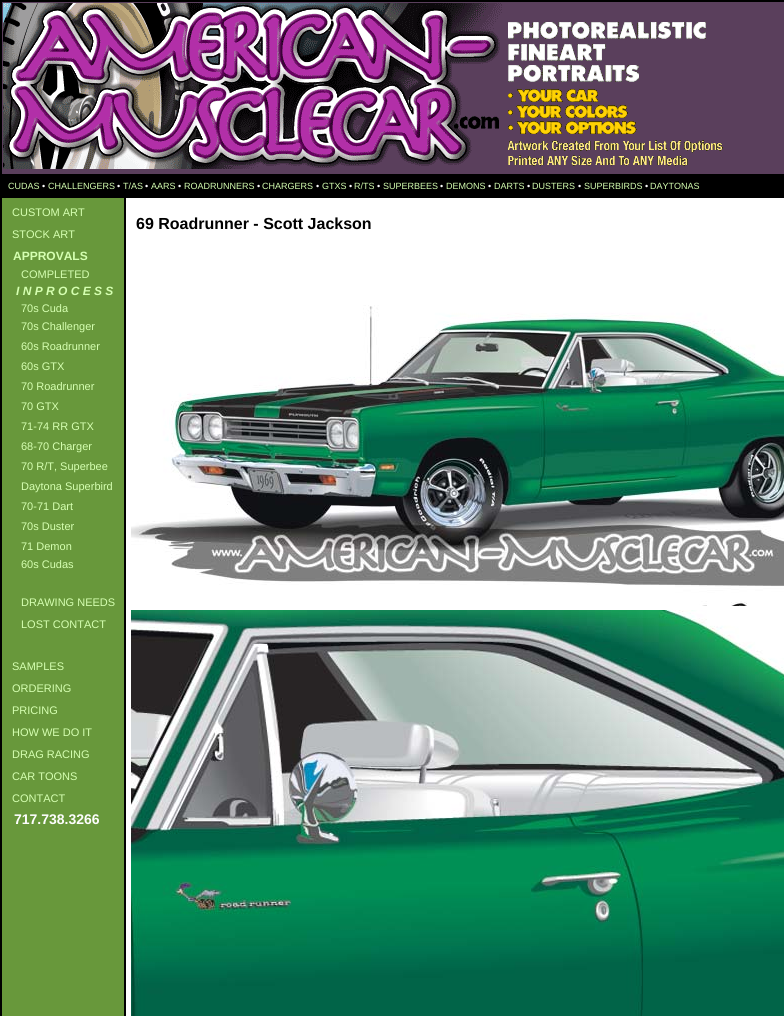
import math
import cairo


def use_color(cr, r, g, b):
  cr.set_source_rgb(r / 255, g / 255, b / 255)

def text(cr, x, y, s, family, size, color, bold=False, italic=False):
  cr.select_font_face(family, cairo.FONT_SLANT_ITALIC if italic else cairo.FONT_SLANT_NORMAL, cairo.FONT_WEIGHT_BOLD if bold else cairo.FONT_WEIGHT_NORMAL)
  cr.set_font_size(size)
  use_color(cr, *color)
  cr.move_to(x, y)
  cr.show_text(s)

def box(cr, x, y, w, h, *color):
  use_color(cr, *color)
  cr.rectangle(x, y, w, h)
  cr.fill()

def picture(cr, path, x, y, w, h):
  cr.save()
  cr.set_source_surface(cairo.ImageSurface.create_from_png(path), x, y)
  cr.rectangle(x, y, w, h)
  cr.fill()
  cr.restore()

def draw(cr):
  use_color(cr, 0, 0, 0)
  cr.paint()
  box(cr, 2, 2, 782, 172, 90, 63, 92)
  picture(cr, "img_01.png", 3, 3, 499, 166)
  picture(cr, "img_02.png", 507, 22, 216, 144)
  box(cr, 2, 198, 122, 818, 104, 152, 59)
  box(cr, 126, 198, 658, 818, 255, 255, 255)
  picture(cr, "img_03.png", 131, 305, 653, 301)
  picture(cr, "img_04.png", 131, 610, 653, 406)
  text(cr, 8, 189, "CUDAS", "Liberation Sans", 9, (213, 255, 177))
  text(cr, 42, 189, "•", "Liberation Sans", 9, (253, 253, 253))
  text(cr, 48, 189, "CHALLENGERS", "Liberation Sans", 9, (213, 255, 177))
  text(cr, 117, 189, "•", "Liberation Sans", 9, (253, 253, 253))
  text(cr, 123, 189, "T/AS", "Liberation Sans", 9, (213, 255, 177))
  text(cr, 145, 189, "•", "Liberation Sans", 9, (253, 253, 253))
  text(cr, 151, 189, "AARS", "Liberation Sans", 9, (213, 255, 177))
  text(cr, 178, 189, "•", "Liberation Sans", 9, (253, 253, 253))
  text(cr, 184, 189, "ROADRUNNERS", "Liberation Sans", 9, (213, 255, 177))
  text(cr, 257, 189, "•", "Liberation Sans", 9, (253, 253, 253))
  text(cr, 262, 189, "CHARGERS", "Liberation Sans", 9, (213, 255, 177))
  text(cr, 316, 189, "•", "Liberation Sans", 9, (253, 253, 253))
  text(cr, 322, 189, "GTXS", "Liberation Sans", 9, (213, 255, 177))
  text(cr, 349, 189, "•", "Liberation Sans", 9, (253, 253, 253))
  text(cr, 354, 189, "R/TS", "Liberation Sans", 9, (213, 255, 177))
  text(cr, 377, 189, "•", "Liberation Sans", 9, (253, 253, 253))
  text(cr, 383, 189, "SUPERBEES", "Liberation Sans", 9, (213, 255, 177))
  text(cr, 440, 189, "•", "Liberation Sans", 9, (253, 253, 253))
  text(cr, 446, 189, "DEMONS", "Liberation Sans", 9, (213, 255, 177))
  text(cr, 488, 189, "•", "Liberation Sans", 9, (253, 253, 253))
  text(cr, 494, 189, "DARTS", "Liberation Sans", 9, (213, 255, 177))
  text(cr, 527, 189, "•", "Liberation Sans", 9, (253, 253, 253))
  text(cr, 532, 189, "DUSTERS", "Liberation Sans", 9, (213, 255, 177))
  text(cr, 578, 189, "•", "Liberation Sans", 9, (253, 253, 253))
  text(cr, 584, 189, "SUPERBIRDS", "Liberation Sans", 9, (213, 255, 177))
  text(cr, 645, 189, "•", "Liberation Sans", 9, (253, 253, 253))
  text(cr, 650, 189, "DAYTONAS", "Liberation Sans", 9, (213, 255, 177))
  text(cr, 12, 216, "CUSTOM ART", "Liberation Sans", 11, (213, 255, 177))
  text(cr, 12, 238, "STOCK ART", "Liberation Sans", 11, (213, 255, 177))
  text(cr, 13, 260, "APPROVALS", "Liberation Sans", 12, (213, 255, 177), bold=True)
  text(cr, 21, 278, "COMPLETED", "Liberation Sans", 11, (213, 255, 177))
  text(cr, 16, 295, "I N P R O C E S S", "Liberation Sans", 12, (213, 255, 177), bold=True, italic=True)
  text(cr, 21, 312, "70s Cuda", "Liberation Sans", 11, (213, 255, 177))
  text(cr, 21, 330, "70s Challenger", "Liberation Sans", 11, (213, 255, 177))
  text(cr, 21, 350, "60s Roadrunner", "Liberation Sans", 11, (213, 255, 177))
  text(cr, 21, 370, "60s GTX", "Liberation Sans", 11, (213, 255, 177))
  text(cr, 21, 390, "70 Roadrunner", "Liberation Sans", 11, (213, 255, 177))
  text(cr, 21, 410, "70 GTX", "Liberation Sans", 11, (213, 255, 177))
  text(cr, 21, 430, "71-74 RR GTX", "Liberation Sans", 11, (213, 255, 177))
  text(cr, 21, 450, "68-70 Charger", "Liberation Sans", 11, (213, 255, 177))
  text(cr, 21, 470, "70 R/T, Superbee", "Liberation Sans", 11, (213, 255, 177))
  text(cr, 21, 490, "Daytona Superbird", "Liberation Sans", 11, (213, 255, 177))
  text(cr, 21, 510, "70-71 Dart", "Liberation Sans", 11, (213, 255, 177))
  text(cr, 21, 530, "70s Duster", "Liberation Sans", 11, (213, 255, 177))
  text(cr, 21, 550, "71 Demon", "Liberation Sans", 11, (213, 255, 177))
  text(cr, 21, 568, "60s Cudas", "Liberation Sans", 11, (213, 255, 177))
  text(cr, 21, 606, "DRAWING NEEDS", "Liberation Sans", 11, (213, 255, 177))
  text(cr, 21, 628, "LOST CONTACT", "Liberation Sans", 11, (213, 255, 177))
  text(cr, 12, 670, "SAMPLES", "Liberation Sans", 11, (213, 255, 177))
  text(cr, 12, 692, "ORDERING", "Liberation Sans", 11, (213, 255, 177))
  text(cr, 12, 714, "PRICING", "Liberation Sans", 11, (213, 255, 177))
  text(cr, 12, 736, "HOW WE DO IT", "Liberation Sans", 11, (213, 255, 177))
  text(cr, 12, 758, "DRAG RACING", "Liberation Sans", 11, (213, 255, 177))
  text(cr, 12, 780, "CAR TOONS", "Liberation Sans", 11, (213, 255, 177))
  text(cr, 12, 802, "CONTACT", "Liberation Sans", 11, (213, 255, 177))
  text(cr, 14, 824, "717.738.3266", "Liberation Sans", 14, (253, 253, 253), bold=True)
  text(cr, 136, 229, "69 Roadrunner - Scott Jackson", "Liberation Sans", 16, (0, 0, 0), bold=True)


surface = cairo.ImageSurface(cairo.FORMAT_RGB24, 784, 1016)
cr = cairo.Context(surface)
options = cairo.FontOptions()
options.set_hint_metrics(cairo.HINT_METRICS_OFF)
options.set_hint_style(cairo.HINT_STYLE_NONE)
cr.set_font_options(options)
cr.set_miter_limit(4)
draw(cr)
surface.write_to_png("out.png")
